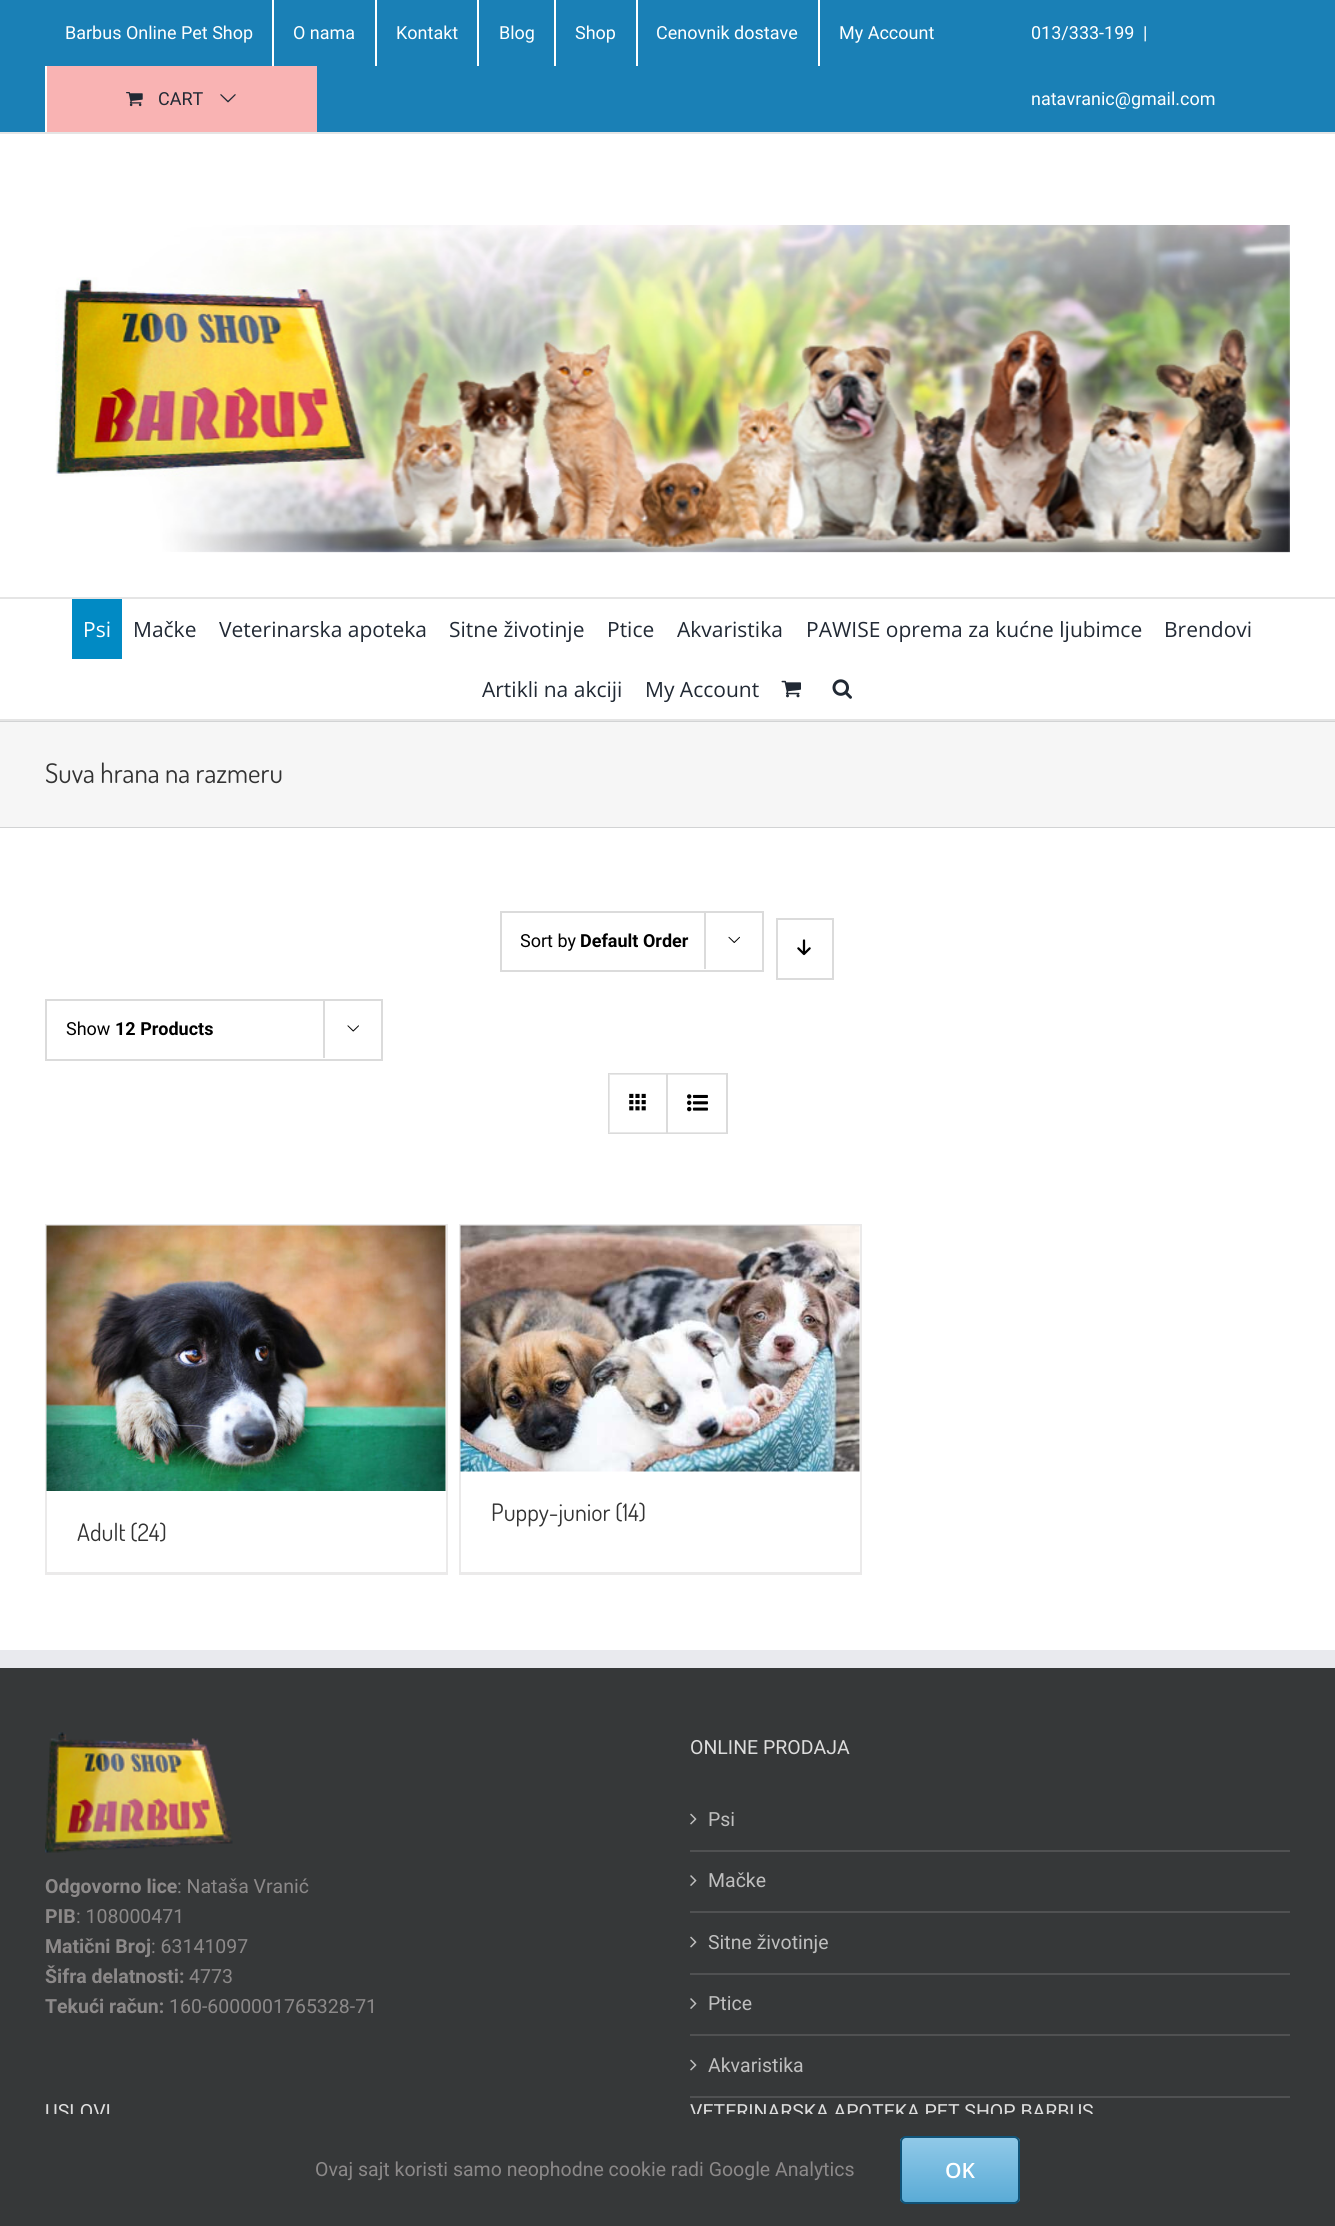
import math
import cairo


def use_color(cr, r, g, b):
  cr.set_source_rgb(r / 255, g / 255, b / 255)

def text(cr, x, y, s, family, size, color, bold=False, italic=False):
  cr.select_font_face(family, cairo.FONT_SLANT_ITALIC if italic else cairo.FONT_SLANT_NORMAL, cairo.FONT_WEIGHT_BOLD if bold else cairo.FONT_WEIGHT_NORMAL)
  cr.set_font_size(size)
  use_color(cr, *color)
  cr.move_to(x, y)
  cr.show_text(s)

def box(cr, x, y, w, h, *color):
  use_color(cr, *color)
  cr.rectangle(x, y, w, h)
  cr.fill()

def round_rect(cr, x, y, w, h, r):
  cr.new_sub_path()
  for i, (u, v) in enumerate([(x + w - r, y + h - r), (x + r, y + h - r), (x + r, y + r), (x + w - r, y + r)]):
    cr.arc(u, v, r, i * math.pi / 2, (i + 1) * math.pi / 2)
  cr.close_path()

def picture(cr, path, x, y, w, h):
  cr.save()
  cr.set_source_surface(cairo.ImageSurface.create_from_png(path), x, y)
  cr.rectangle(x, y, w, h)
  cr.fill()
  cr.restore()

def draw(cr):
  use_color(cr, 246, 246, 246)
  cr.paint()
  box(cr, 0, 0, 1335, 132, 26, 128, 182)
  box(cr, 0, 132, 1335, 2, 229, 229, 229)
  box(cr, 272, 0, 2, 66, 255, 255, 255)
  box(cr, 375, 0, 2, 66, 255, 255, 255)
  box(cr, 477, 0, 2, 66, 255, 255, 255)
  box(cr, 554, 0, 2, 66, 255, 255, 255)
  box(cr, 636, 0, 2, 66, 255, 255, 255)
  box(cr, 818, 0, 2, 66, 255, 255, 255)
  box(cr, 45, 66, 2, 66, 255, 255, 255)
  box(cr, 47, 66, 270, 66, 249, 179, 179)
  picture(cr, "img_01.png", 126, 92, 17, 15)
  picture(cr, "img_02.png", 220, 94, 16, 9)
  box(cr, 0, 134, 1335, 463, 255, 255, 255)
  box(cr, 0, 597, 1335, 2, 229, 229, 229)
  picture(cr, "img_03.png", 55, 225, 1235, 328)
  box(cr, 0, 599, 1335, 120, 255, 255, 255)
  box(cr, 0, 719, 1335, 2, 229, 229, 229)
  box(cr, 72, 599, 50, 60, 1, 138, 196)
  picture(cr, "img_04.png", 781, 680, 20, 18)
  picture(cr, "img_05.png", 832, 679, 20, 20)
  box(cr, 0, 721, 1335, 1, 210, 211, 212)
  box(cr, 0, 827, 1335, 1, 210, 211, 212)
  box(cr, 0, 828, 1335, 822, 255, 255, 255)
  cr.rectangle(501, 912, 262, 59)
  use_color(cr, 219, 219, 219)
  cr.stroke()
  box(cr, 704, 911, 2, 58, 219, 219, 219)
  picture(cr, "img_06.png", 728, 936, 12, 7)
  cr.rectangle(777, 919, 56, 60)
  cr.stroke()
  picture(cr, "img_07.png", 797, 939, 14, 17)
  cr.rectangle(46, 1000, 336, 60)
  cr.stroke()
  box(cr, 323, 999, 2, 59, 219, 219, 219)
  picture(cr, "img_08.png", 347, 1025, 12, 7)
  cr.rectangle(609, 1074, 118, 59)
  cr.stroke()
  cr.set_source_rgba(1, 1, 1, 0.35)
  cr.rectangle(609, 1074, 57, 59)
  cr.fill()
  box(cr, 666, 1074, 2, 59, 219, 219, 219)
  picture(cr, "img_09.png", 629, 1093, 17, 18)
  cr.set_source_rgba(1, 1, 1, 0.35)
  cr.rectangle(668, 1074, 58, 59)
  cr.fill()
  picture(cr, "img_10.png", 687, 1094, 21, 18)
  box(cr, 459, 1224, 402, 2, 235, 234, 234)
  box(cr, 860, 1224, 2, 351, 235, 234, 234)
  box(cr, 459, 1572, 402, 3, 235, 234, 234)
  box(cr, 459, 1224, 2, 351, 235, 234, 234)
  picture(cr, "img_11.png", 460, 1225, 400, 247)
  box(cr, 45, 1224, 402, 2, 235, 234, 234)
  box(cr, 446, 1224, 2, 351, 235, 234, 234)
  box(cr, 45, 1572, 402, 3, 235, 234, 234)
  box(cr, 45, 1224, 2, 351, 235, 234, 234)
  picture(cr, "img_12.png", 46, 1225, 400, 266)
  box(cr, 0, 1668, 1335, 446, 54, 56, 57)
  box(cr, 0, 1650, 1335, 18, 233, 234, 238)
  picture(cr, "img_13.png", 45, 1732, 188, 121)
  box(cr, 690, 1850, 600, 2, 80, 81, 82)
  picture(cr, "img_14.png", 690, 1813, 7, 12)
  box(cr, 690, 1911, 600, 2, 80, 81, 82)
  picture(cr, "img_15.png", 690, 1875, 7, 11)
  box(cr, 690, 1973, 600, 2, 80, 81, 82)
  picture(cr, "img_14.png", 690, 1936, 7, 12)
  box(cr, 690, 2034, 600, 2, 80, 81, 82)
  picture(cr, "img_15.png", 690, 1998, 7, 11)
  box(cr, 690, 2096, 600, 2, 80, 81, 82)
  picture(cr, "img_14.png", 690, 2059, 7, 12)
  text(cr, 65, 39, "Barbus Online Pet Shop", "Roboto", 18, (255, 255, 255))
  text(cr, 293, 39, "O nama", "Roboto", 18, (255, 255, 255))
  text(cr, 396, 39, "Kontakt", "Roboto", 18, (255, 255, 255))
  text(cr, 499, 39, "Blog", "Roboto", 18, (255, 255, 255))
  text(cr, 575, 39, "Shop", "Roboto", 18, (255, 255, 255))
  text(cr, 656, 39, "Cenovnik dostave", "Roboto", 18, (255, 255, 255))
  text(cr, 839, 39, "My Account", "Roboto", 18, (255, 255, 255))
  text(cr, 158, 105, "CART", "Roboto", 18, (33, 41, 52))
  text(cr, 1031, 39, "013/333-199", "Roboto", 18, (255, 255, 255))
  text(cr, 1143, 39, "|", "Roboto", 18, (255, 255, 255))
  text(cr, 1031, 105, "natavranic@gmail.com", "Roboto", 18, (255, 255, 255))
  text(cr, 83, 637, "Psi", "Open Sans", 21, (255, 255, 255))
  text(cr, 133, 637, "Mačke", "Open Sans", 21, (33, 41, 52))
  text(cr, 219, 637, "Veterinarska apoteka", "Open Sans", 21, (33, 41, 52))
  text(cr, 449, 637, "Sitne životinje", "Open Sans", 21, (33, 41, 52))
  text(cr, 607, 637, "Ptice", "Open Sans", 21, (33, 41, 52))
  text(cr, 677, 637, "Akvaristika", "Open Sans", 21, (33, 41, 52))
  text(cr, 806, 637, "PAWISE oprema za kućne ljubimce", "Open Sans", 21, (33, 41, 52))
  text(cr, 1164, 637, "Brendovi", "Open Sans", 21, (33, 41, 52))
  text(cr, 482, 697, "Artikli na akciji", "Open Sans", 21, (33, 41, 52))
  text(cr, 645, 697, "My Account", "Open Sans", 21, (33, 41, 52))
  text(cr, 45, 783, "Suva hrana na razmeru", "Dosis", 27, (51, 51, 51))
  cr.save()
  cr.rectangle(521, 912, 199, 59)
  cr.clip()
  text(cr, 520, 947, "Sort by", "Roboto", 18, (0, 0, 0))
  cr.restore()
  text(cr, 580, 947, "Default Order", "Roboto", 18, (0, 0, 0), bold=True)
  text(cr, 66, 1035, "Show", "Roboto", 18, (0, 0, 0))
  text(cr, 115, 1035, "12 Products", "Roboto", 18, (0, 0, 0), bold=True)
  text(cr, 491, 1521, "Puppy-junior (14)", "Dosis", 24, (51, 51, 51))
  text(cr, 77, 1541, "Adult (24)", "Dosis", 24, (51, 51, 51))
  text(cr, 45, 1893, "Odgovorno lice", "Roboto", 19.5, (140, 137, 137), bold=True)
  text(cr, 177, 1893, ": Nataša Vranić", "Roboto", 19.5, (140, 137, 137))
  text(cr, 45, 1923, "PIB", "Roboto", 19.5, (140, 137, 137), bold=True)
  text(cr, 76, 1923, ": 108000471", "Roboto", 19.5, (140, 137, 137))
  text(cr, 45, 1953, "Matični Broj", "Roboto", 19.5, (140, 137, 137), bold=True)
  text(cr, 151, 1953, ": 63141097", "Roboto", 19.5, (140, 137, 137))
  text(cr, 45, 1983, "Šifra delatnosti:", "Roboto", 19.5, (140, 137, 137), bold=True)
  text(cr, 189, 1983, "4773", "Roboto", 19.5, (140, 137, 137))
  text(cr, 45, 2013, "Tekući račun:", "Roboto", 19.5, (140, 137, 137), bold=True)
  text(cr, 169, 2013, "160-6000001765328-71", "Roboto", 19.5, (140, 137, 137))
  text(cr, 690, 1754, "ONLINE PRODAJA", "Roboto", 19.5, (221, 221, 221))
  text(cr, 708, 1826, "Psi", "Roboto", 19.5, (191, 191, 191))
  text(cr, 708, 1887, "Mačke", "Roboto", 19.5, (191, 191, 191))
  text(cr, 708, 1949, "Sitne životinje", "Roboto", 19.5, (191, 191, 191))
  text(cr, 708, 2010, "Ptice", "Roboto", 19.5, (191, 191, 191))
  text(cr, 708, 2072, "Akvaristika", "Roboto", 19.5, (191, 191, 191))
  text(cr, 45, 2118, "USLOVI", "Roboto", 19.5, (221, 221, 221))
  text(cr, 690, 2118, "VETERINARSKA APOTEKA PET SHOP BARBUS", "Roboto", 19.5, (221, 221, 221))
  box(cr, 0, 2114, 1335, 112, 54, 56, 57)
  text(cr, 315, 2176, "Ovaj sajt koristi samo neophodne cookie radi Google Analytics", "Roboto", 19.5, (140, 137, 137))
  cr.save()
  round_rect(cr, 900, 2136, 120, 68, 6)
  cr.clip()
  gradient = cairo.LinearGradient(960, 2202, 960, 2138)
  gradient.add_color_stop_rgba(0, 0.353, 0.671, 0.839, 1)
  gradient.add_color_stop_rgba(1, 0.565, 0.788, 0.91, 1)
  cr.set_source(gradient)
  cr.rectangle(900, 2138, 120, 64)
  cr.fill()
  cr.restore()
  round_rect(cr, 901, 2137, 118, 66, 5)
  use_color(cr, 16, 83, 120)
  cr.stroke()
  text(cr, 945, 2178, "OK", "Open Sans SemiBold", 21, (255, 255, 255))


surface = cairo.ImageSurface(cairo.FORMAT_RGB24, 1335, 2226)
cr = cairo.Context(surface)
options = cairo.FontOptions()
options.set_hint_metrics(cairo.HINT_METRICS_OFF)
options.set_hint_style(cairo.HINT_STYLE_NONE)
cr.set_font_options(options)
cr.set_miter_limit(4)
draw(cr)
surface.write_to_png("out.png")
